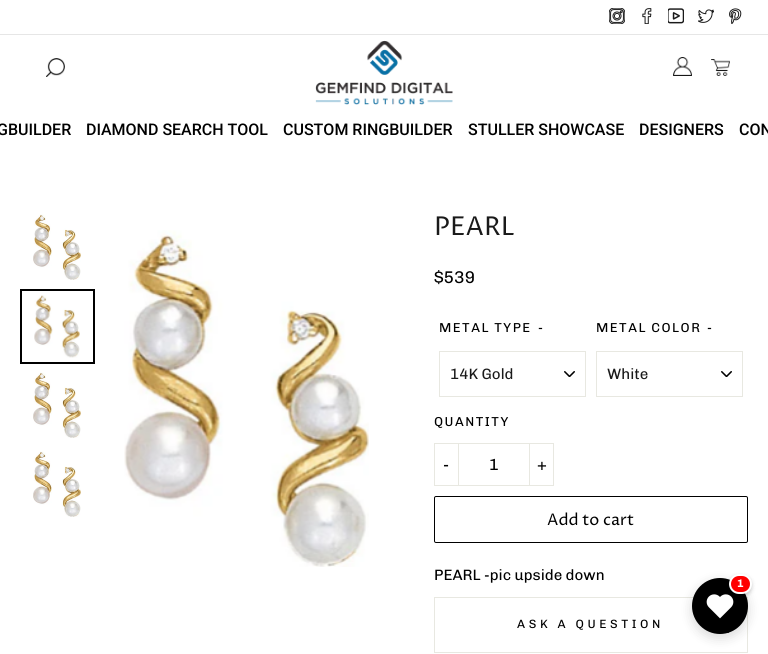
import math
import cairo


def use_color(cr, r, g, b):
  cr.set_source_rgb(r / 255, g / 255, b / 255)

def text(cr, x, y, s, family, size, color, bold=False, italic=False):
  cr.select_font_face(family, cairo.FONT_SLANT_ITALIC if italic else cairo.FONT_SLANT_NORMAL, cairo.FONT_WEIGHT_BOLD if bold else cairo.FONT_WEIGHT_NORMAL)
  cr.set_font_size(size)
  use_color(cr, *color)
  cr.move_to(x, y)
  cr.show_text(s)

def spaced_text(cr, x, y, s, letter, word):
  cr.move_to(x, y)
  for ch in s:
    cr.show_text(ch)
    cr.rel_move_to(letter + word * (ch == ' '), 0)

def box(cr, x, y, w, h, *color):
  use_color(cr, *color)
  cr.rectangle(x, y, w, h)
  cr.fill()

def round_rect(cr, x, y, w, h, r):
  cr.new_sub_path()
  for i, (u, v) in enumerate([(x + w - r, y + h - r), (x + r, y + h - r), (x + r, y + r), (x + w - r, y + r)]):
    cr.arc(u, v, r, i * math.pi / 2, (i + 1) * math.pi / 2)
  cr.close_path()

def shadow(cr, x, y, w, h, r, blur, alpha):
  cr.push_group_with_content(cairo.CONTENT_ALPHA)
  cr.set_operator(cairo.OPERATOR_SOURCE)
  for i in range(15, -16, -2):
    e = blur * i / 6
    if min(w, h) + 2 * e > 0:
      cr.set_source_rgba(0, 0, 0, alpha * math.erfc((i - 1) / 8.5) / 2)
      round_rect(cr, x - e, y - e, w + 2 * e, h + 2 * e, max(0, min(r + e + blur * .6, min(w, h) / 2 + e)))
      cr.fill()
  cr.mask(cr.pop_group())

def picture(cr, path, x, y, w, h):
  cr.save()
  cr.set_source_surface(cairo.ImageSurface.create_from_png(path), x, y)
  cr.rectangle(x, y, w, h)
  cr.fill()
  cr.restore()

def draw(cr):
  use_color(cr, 255, 255, 255)
  cr.paint()
  box(cr, 0, 34, 768, 1, 230, 230, 230)
  picture(cr, "img_01.png", 609, 8, 16, 16)
  picture(cr, "img_02.png", 642, 8, 10, 16)
  picture(cr, "img_03.png", 668, 8, 16, 16)
  picture(cr, "img_04.png", 698, 9, 16, 14)
  picture(cr, "img_05.png", 729, 8, 13, 16)
  picture(cr, "img_06.png", 46, 58, 19, 19)
  picture(cr, "img_07.png", 315, 40, 138, 65)
  picture(cr, "img_08.png", 673, 57, 19, 19)
  picture(cr, "img_09.png", 711, 59, 19, 17)
  picture(cr, "img_10.png", 33, 214, 48, 66)
  cr.rectangle(21, 290, 73, 73)
  use_color(cr, 0, 0, 0)
  cr.stroke()
  picture(cr, "img_11.png", 34, 295, 46, 63)
  picture(cr, "img_10.png", 33, 372, 48, 66)
  picture(cr, "img_10.png", 33, 451, 48, 66)
  picture(cr, "img_12.png", 124, 230, 245, 337)
  picture(cr, "img_13.png", 564, 371, 11, 6)
  cr.rectangle(439.5, 351.5, 146, 45)
  use_color(cr, 232, 232, 225)
  cr.set_line_width(1)
  cr.stroke()
  picture(cr, "img_13.png", 721, 371, 11, 6)
  cr.rectangle(596.5, 351.5, 146, 45)
  cr.stroke()
  cr.rectangle(434.5, 443.5, 24, 42)
  cr.stroke()
  box(cr, 459, 443, 70, 1, 232, 232, 225)
  box(cr, 459, 485, 70, 1, 232, 232, 225)
  cr.rectangle(529.5, 443.5, 24, 42)
  cr.stroke()
  round_rect(cr, 434.5, 496.5, 313, 46, 1.5)
  use_color(cr, 0, 0, 0)
  cr.stroke()
  box(cr, 434, 652, 314, 1, 232, 232, 225)
  box(cr, 434, 597, 314, 1, 232, 232, 225)
  box(cr, 747, 597, 1, 55, 232, 232, 225)
  box(cr, 434, 597, 1, 55, 232, 232, 225)
  cr.new_path()
  cr.move_to(722.5, 627.5)
  cr.line_to(728, 632.5)
  cr.line_to(733.5, 627.5)
  use_color(cr, 0, 0, 0)
  cr.set_line_width(0.9)
  cr.set_line_cap(cairo.LINE_CAP_ROUND)
  cr.stroke()
  use_color(cr, 0, 0, 0)
  shadow(cr, 692, 582, 56, 56, 28, 6, 0.15)
  use_color(cr, 0, 0, 0)
  cr.arc(720, 606, 28, 0, 2 * math.pi)
  cr.fill()
  picture(cr, "img_14.png", 706, 594, 28, 25)
  use_color(cr, 0, 0, 0)
  shadow(cr, 729, 576, 23, 20, 10, 2, 0.2)
  use_color(cr, 255, 0, 0)
  round_rect(cr, 730, 575, 21, 18, 9)
  cr.fill_preserve()
  use_color(cr, 255, 255, 255)
  cr.set_line_width(2)
  cr.set_line_cap(cairo.LINE_CAP_BUTT)
  cr.stroke()
  text(cr, -3, 135, "GBUILDER", "Roboto Medium", 16, (0, 0, 0))
  text(cr, 86, 135, "DIAMOND SEARCH TOOL", "Roboto Medium", 16, (0, 0, 0))
  text(cr, 283, 135, "CUSTOM RINGBUILDER", "Roboto Medium", 16, (0, 0, 0))
  text(cr, 468, 135, "STULLER SHOWCASE", "Roboto Medium", 16, (0, 0, 0))
  text(cr, 639, 135, "DESIGNERS", "Roboto Medium", 16, (0, 0, 0))
  text(cr, 739, 135, "CON", "Roboto Medium", 16, (0, 0, 0))
  text(cr, 434, 235, "PEARL", "Proza Libre", 26, (26, 26, 26))
  text(cr, 434, 283, "$539", "Chivo", 17, (0, 0, 0))
  cr.set_font_size(13)
  spaced_text(cr, 439, 332, "METAL TYPE", 1.5, 0)
  spaced_text(cr, 538, 332, "-", 1.5, 0)
  text(cr, 450, 379, "14K Gold", "Chivo", 15, (26, 26, 26))
  cr.set_font_size(13)
  use_color(cr, 0, 0, 0)
  spaced_text(cr, 596, 332, "METAL COLOR", 1.5, 0)
  spaced_text(cr, 707, 332, "-", 1.5, 0)
  text(cr, 607, 379, "White", "Chivo", 15, (26, 26, 26))
  cr.set_font_size(13)
  use_color(cr, 0, 0, 0)
  spaced_text(cr, 434, 426, "QUANTITY", 1.5, 0)
  text(cr, 443, 470, "-", "Chivo", 16, (0, 0, 0))
  text(cr, 489, 470, "1", "Chivo", 16, (0, 0, 0))
  text(cr, 537, 470, "+", "Chivo", 16, (0, 0, 0))
  text(cr, 547, 525, "Add to cart", "Proza Libre", 16, (0, 0, 0))
  text(cr, 434, 580, "PEARL -pic upside down", "Chivo", 15, (0, 0, 0))
  cr.set_font_size(12)
  spaced_text(cr, 517, 628, "ASK A QUESTION", 3.6, 0)
  text(cr, 737, 587, "1", "Chivo", 11, (255, 255, 255), bold=True)


surface = cairo.ImageSurface(cairo.FORMAT_RGB24, 768, 654)
cr = cairo.Context(surface)
options = cairo.FontOptions()
options.set_hint_metrics(cairo.HINT_METRICS_OFF)
options.set_hint_style(cairo.HINT_STYLE_NONE)
cr.set_font_options(options)
cr.set_miter_limit(4)
draw(cr)
surface.write_to_png("out.png")
